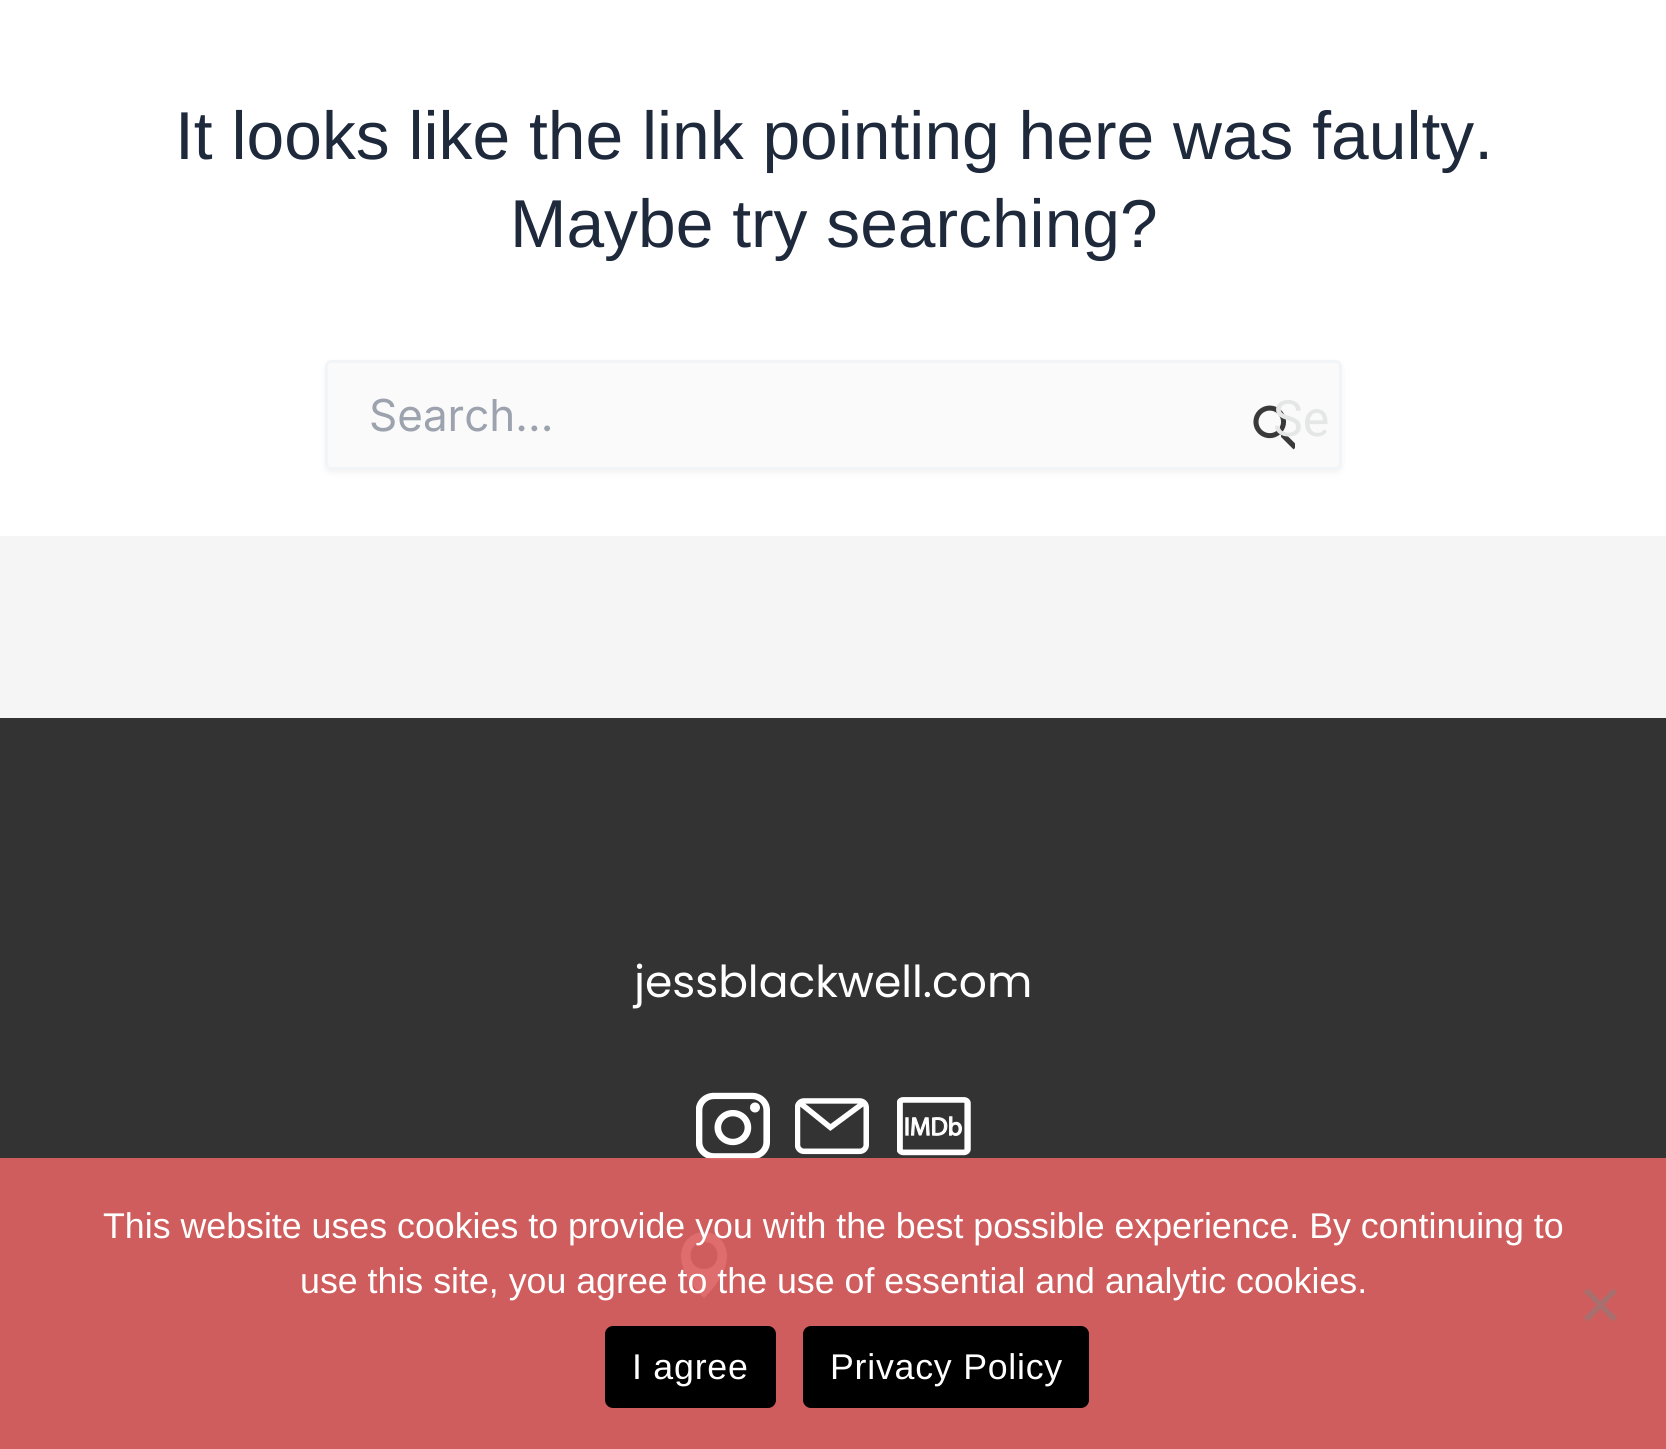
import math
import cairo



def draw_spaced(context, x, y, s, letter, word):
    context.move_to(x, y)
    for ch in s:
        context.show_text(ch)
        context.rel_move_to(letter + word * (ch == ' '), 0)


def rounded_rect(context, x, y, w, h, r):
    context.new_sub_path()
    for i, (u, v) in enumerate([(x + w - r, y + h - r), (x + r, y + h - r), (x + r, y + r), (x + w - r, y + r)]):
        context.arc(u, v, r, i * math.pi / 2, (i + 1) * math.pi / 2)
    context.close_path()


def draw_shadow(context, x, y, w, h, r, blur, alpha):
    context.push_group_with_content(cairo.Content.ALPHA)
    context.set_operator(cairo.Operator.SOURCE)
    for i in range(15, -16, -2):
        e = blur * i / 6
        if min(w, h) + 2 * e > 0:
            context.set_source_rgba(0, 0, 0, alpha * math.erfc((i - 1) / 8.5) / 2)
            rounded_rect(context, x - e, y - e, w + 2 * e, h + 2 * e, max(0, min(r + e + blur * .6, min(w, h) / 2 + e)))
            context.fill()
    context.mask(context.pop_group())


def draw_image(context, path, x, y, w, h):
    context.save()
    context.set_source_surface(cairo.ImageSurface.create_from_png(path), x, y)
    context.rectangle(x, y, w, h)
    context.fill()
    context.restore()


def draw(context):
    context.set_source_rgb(245 / 255, 245 / 255, 245 / 255)
    context.paint()
    context.set_source_rgb(1, 1, 1)
    context.rectangle(0, 0, 1666, 536)
    context.fill()
    context.set_source_rgb(0, 0, 0)
    draw_shadow(context, 325, 363, 1017, 110, 6, 3, 0.05)
    context.set_source_rgb(250 / 255, 250 / 255, 250 / 255)
    rounded_rect(context, 326.5, 361.5, 1014, 107, 4.5)
    context.fill_preserve()
    context.set_source_rgb(242 / 255, 245 / 255, 247 / 255)
    context.set_line_width(3)
    context.stroke()
    draw_image(context, "images/1.png", 1253, 405, 42, 45)
    context.set_source_rgb(51 / 255, 51 / 255, 51 / 255)
    context.rectangle(0, 718, 1666, 731)
    context.fill()
    draw_image(context, "images/2.png", 696, 1092, 74, 68)
    draw_image(context, "images/3.png", 795, 1098, 74, 57)
    draw_image(context, "images/4.png", 897, 1097, 74, 59)
    context.set_source_rgb(1, 1, 1)
    context.new_path()
    context.move_to(704, 1232)
    context.curve_to(691, 1232, 681, 1243, 681, 1256)
    context.curve_to(681, 1277, 704, 1298, 704, 1298)
    context.curve_to(704, 1298, 727, 1277, 727, 1256)
    context.curve_to(727, 1243, 717, 1232, 704, 1232)
    context.close_path()
    context.move_to(704, 1269)
    context.curve_to(686, 1269, 686, 1242, 704, 1242)
    context.curve_to(722, 1242, 722, 1269, 704, 1269)
    context.close_path()
    context.fill()
    context.set_source_rgba(221 / 255, 97 / 255, 97 / 255, 0.92)
    context.rectangle(0, 1158, 1666, 291)
    context.fill()
    context.set_source_rgb(168 / 255, 111 / 255, 111 / 255)
    context.new_path()
    context.move_to(1613, 1288.5)
    context.line_to(1617, 1292)
    context.line_to(1588, 1321.5)
    context.line_to(1584, 1317.5)
    context.close_path()
    context.fill()
    context.new_path()
    context.move_to(1584, 1292)
    context.line_to(1588, 1288.5)
    context.line_to(1617, 1317.5)
    context.line_to(1613, 1321.5)
    context.close_path()
    context.fill()
    context.set_source_rgb(0, 0, 0)
    rounded_rect(context, 605, 1326, 171, 82, 8)
    context.fill()
    rounded_rect(context, 803, 1326, 286, 82, 8)
    context.fill()
    context.select_font_face("Liberation Sans")
    context.set_font_size(67.75)
    context.set_source_rgb(30 / 255, 41 / 255, 59 / 255)
    context.move_to(175, 159)
    context.show_text("It looks like the link pointing here was faulty.")
    context.move_to(510, 247)
    context.show_text("Maybe try searching?")
    context.select_font_face("Inter")
    context.set_font_size(44)
    context.set_source_rgb(156 / 255, 163 / 255, 175 / 255)
    context.move_to(369, 431)
    context.show_text("Search...")
    context.select_font_face("Roboto")
    context.set_font_size(50)
    context.set_source_rgb(229 / 255, 230 / 255, 230 / 255)
    context.move_to(1273, 436)
    context.show_text("Se")
    context.select_font_face("Poppins")
    context.set_font_size(44)
    context.set_source_rgb(1, 1, 1)
    context.move_to(634, 997)
    context.show_text("jessblackwell.com")
    context.select_font_face("Liberation Sans")
    context.set_font_size(35.75)
    context.move_to(103, 1238)
    context.show_text("This website uses cookies to provide you with the best possible experience. By continuing to")
    context.move_to(300, 1293)
    context.show_text("use this site, you agree to the use of essential and analytic cookies.")
    draw_spaced(context, 632, 1379, "I agree", 0.75, 0)
    draw_spaced(context, 830, 1379, "Privacy Policy", 0.75, 0)


surface = cairo.ImageSurface(cairo.Format.RGB24, 1666, 1449)
context = cairo.Context(surface)
options = cairo.FontOptions()
options.set_hint_metrics(cairo.HintMetrics.OFF)
options.set_hint_style(cairo.HintStyle.NONE)
context.set_font_options(options)
context.set_miter_limit(4)
draw(context)
surface.write_to_png("out.png")
